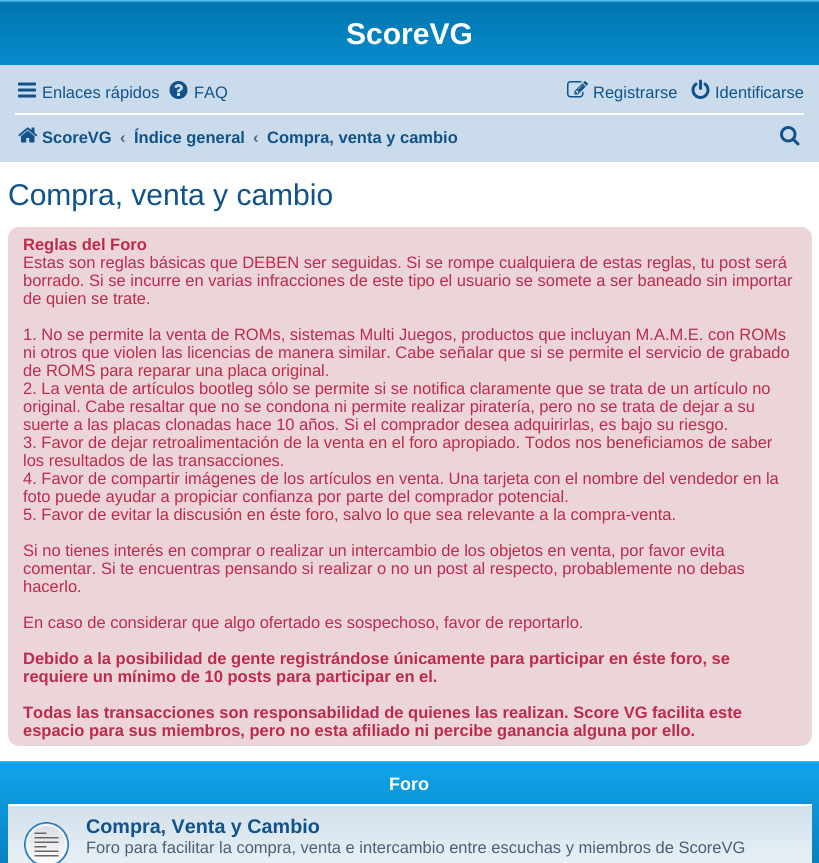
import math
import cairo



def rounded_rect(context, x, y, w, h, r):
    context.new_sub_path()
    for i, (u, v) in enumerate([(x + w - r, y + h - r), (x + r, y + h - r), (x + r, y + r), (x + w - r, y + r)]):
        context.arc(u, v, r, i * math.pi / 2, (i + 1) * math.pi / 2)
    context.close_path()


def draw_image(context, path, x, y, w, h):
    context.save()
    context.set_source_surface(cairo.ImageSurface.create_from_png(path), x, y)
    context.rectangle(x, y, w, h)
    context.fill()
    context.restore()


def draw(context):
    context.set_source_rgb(1, 1, 1)
    context.paint()
    gradient = cairo.LinearGradient(410, 0, 410, 138)
    gradient.add_color_stop_rgba(0, 106 / 255, 206 / 255, 1, 1)
    gradient.add_color_stop_rgba(0.02, 0, 118 / 255, 177 / 255, 1)
    gradient.add_color_stop_rgba(1, 18 / 255, 163 / 255, 235 / 255, 1)
    context.set_source(gradient)
    context.rectangle(0, 0, 819, 65)
    context.fill()
    context.set_source_rgb(202 / 255, 220 / 255, 235 / 255)
    context.rectangle(0, 65, 819, 97)
    context.fill()
    draw_image(context, "images/1.png", 18, 82, 18, 16)
    draw_image(context, "images/2.png", 169, 81, 19, 18)
    draw_image(context, "images/3.png", 567, 81, 21, 17)
    draw_image(context, "images/4.png", 691, 79, 19, 20)
    context.set_source_rgb(1, 1, 1)
    context.rectangle(15, 113, 789, 2)
    context.fill()
    draw_image(context, "images/5.png", 18, 127, 20, 16)
    draw_image(context, "images/6.png", 780, 126, 20, 20)
    context.set_source_rgb(236 / 255, 213 / 255, 216 / 255)
    rounded_rect(context, 8, 227, 804, 519, 11)
    context.fill()
    gradient = cairo.LinearGradient(410, 760, 410, 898)
    gradient.add_color_stop_rgba(0, 106 / 255, 206 / 255, 1, 1)
    gradient.add_color_stop_rgba(0.02, 18 / 255, 163 / 255, 235 / 255, 1)
    gradient.add_color_stop_rgba(1, 0, 118 / 255, 177 / 255, 1)
    context.set_source(gradient)
    context.rectangle(0, 761, 819, 102)
    context.fill()
    gradient = cairo.LinearGradient(410, 804, 410, 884)
    gradient.add_color_stop_rgba(0, 210 / 255, 224 / 255, 235 / 255, 1)
    gradient.add_color_stop_rgba(1, 238 / 255, 245 / 255, 249 / 255, 1)
    context.set_source(gradient)
    context.rectangle(8, 806, 804, 57)
    context.fill()
    context.set_source_rgb(1, 1, 1)
    context.rectangle(8, 804, 804, 2)
    context.fill()
    draw_image(context, "images/7.png", 24, 822, 45, 41)
    context.select_font_face("Liberation Sans", cairo.FontSlant.NORMAL, cairo.FontWeight.BOLD)
    context.set_font_size(30)
    context.move_to(346, 44)
    context.show_text("ScoreVG")
    context.select_font_face("Liberation Sans")
    context.set_font_size(16.5)
    context.set_source_rgb(16 / 255, 82 / 255, 137 / 255)
    context.move_to(42, 98)
    context.show_text("Enlaces rápidos")
    context.move_to(194, 98)
    context.show_text("FAQ")
    context.move_to(593, 98)
    context.show_text("Registrarse")
    context.move_to(715, 98)
    context.show_text("Identificarse")
    context.select_font_face("Liberation Sans", cairo.FontSlant.NORMAL, cairo.FontWeight.BOLD)
    context.move_to(42, 143)
    context.show_text("ScoreVG")
    context.set_source_rgb(83 / 255, 100 / 255, 130 / 255)
    context.move_to(120, 143)
    context.show_text("‹")
    context.set_source_rgb(16 / 255, 82 / 255, 137 / 255)
    context.move_to(134, 143)
    context.show_text("Índice general")
    context.set_source_rgb(83 / 255, 100 / 255, 130 / 255)
    context.move_to(253, 143)
    context.show_text("‹")
    context.set_source_rgb(16 / 255, 82 / 255, 137 / 255)
    context.move_to(267, 143)
    context.show_text("Compra, venta y cambio")
    context.select_font_face("Liberation Sans")
    context.set_font_size(30)
    context.move_to(8, 205)
    context.show_text("Compra, venta y cambio")
    context.select_font_face("Liberation Sans", cairo.FontSlant.NORMAL, cairo.FontWeight.BOLD)
    context.set_font_size(16.5)
    context.set_source_rgb(188 / 255, 42 / 255, 77 / 255)
    context.move_to(23, 250)
    context.show_text("Reglas del Foro")
    context.select_font_face("Liberation Sans")
    context.move_to(23, 268)
    context.show_text("Estas son reglas básicas que DEBEN ser seguidas. Si se rompe cualquiera de estas reglas, tu post será")
    context.move_to(23, 286)
    context.show_text("borrado. Si se incurre en varias infracciones de este tipo el usuario se somete a ser baneado sin importar")
    context.move_to(23, 304)
    context.show_text("de quien se trate.")
    context.move_to(23, 340)
    context.show_text("1. No se permite la venta de ROMs, sistemas Multi Juegos, productos que incluyan M.A.M.E. con ROMs")
    context.move_to(23, 358)
    context.show_text("ni otros que violen las licencias de manera similar. Cabe señalar que si se permite el servicio de grabado")
    context.move_to(23, 376)
    context.show_text("de ROMS para reparar una placa original.")
    context.move_to(23, 394)
    context.show_text("2. La venta de artículos bootleg sólo se permite si se notifica claramente que se trata de un artículo no")
    context.move_to(23, 412)
    context.show_text("original. Cabe resaltar que no se condona ni permite realizar piratería, pero no se trata de dejar a su")
    context.move_to(23, 430)
    context.show_text("suerte a las placas clonadas hace 10 años. Si el comprador desea adquirirlas, es bajo su riesgo.")
    context.move_to(23, 448)
    context.show_text("3. Favor de dejar retroalimentación de la venta en el foro apropiado. Todos nos beneficiamos de saber")
    context.move_to(23, 466)
    context.show_text("los resultados de las transacciones.")
    context.move_to(23, 484)
    context.show_text("4. Favor de compartir imágenes de los artículos en venta. Una tarjeta con el nombre del vendedor en la")
    context.move_to(23, 502)
    context.show_text("foto puede ayudar a propiciar confianza por parte del comprador potencial.")
    context.move_to(23, 520)
    context.show_text("5. Favor de evitar la discusión en éste foro, salvo lo que sea relevante a la compra-venta.")
    context.move_to(23, 556)
    context.show_text("Si no tienes interés en comprar o realizar un intercambio de los objetos en venta, por favor evita")
    context.move_to(23, 574)
    context.show_text("comentar. Si te encuentras pensando si realizar o no un post al respecto, probablemente no debas")
    context.move_to(23, 592)
    context.show_text("hacerlo.")
    context.move_to(23, 628)
    context.show_text("En caso de considerar que algo ofertado es sospechoso, favor de reportarlo.")
    context.select_font_face("Liberation Sans", cairo.FontSlant.NORMAL, cairo.FontWeight.BOLD)
    context.move_to(23, 664)
    context.show_text("Debido a la posibilidad de gente registrándose únicamente para participar en éste foro, se")
    context.move_to(23, 682)
    context.show_text("requiere un mínimo de 10 posts para participar en el.")
    context.move_to(23, 718)
    context.show_text("Todas las transacciones son responsabilidad de quienes las realizan. Score VG facilita este")
    context.move_to(23, 736)
    context.show_text("espacio para sus miembros, pero no esta afiliado ni percibe ganancia alguna por ello.")
    context.set_font_size(18)
    context.set_source_rgb(1, 1, 1)
    context.move_to(389, 790)
    context.show_text("Foro")
    context.set_font_size(19.75)
    context.set_source_rgb(16 / 255, 82 / 255, 137 / 255)
    context.move_to(86, 833)
    context.show_text("Compra, Venta y Cambio")
    context.select_font_face("Liberation Sans")
    context.set_font_size(16.5)
    context.set_source_rgb(76 / 255, 93 / 255, 119 / 255)
    context.move_to(86, 853)
    context.show_text("Foro para facilitar la compra, venta e intercambio entre escuchas y miembros de ScoreVG")


surface = cairo.ImageSurface(cairo.Format.RGB24, 819, 863)
context = cairo.Context(surface)
options = cairo.FontOptions()
options.set_hint_metrics(cairo.HintMetrics.OFF)
options.set_hint_style(cairo.HintStyle.NONE)
context.set_font_options(options)
context.set_miter_limit(4)
draw(context)
surface.write_to_png("out.png")
